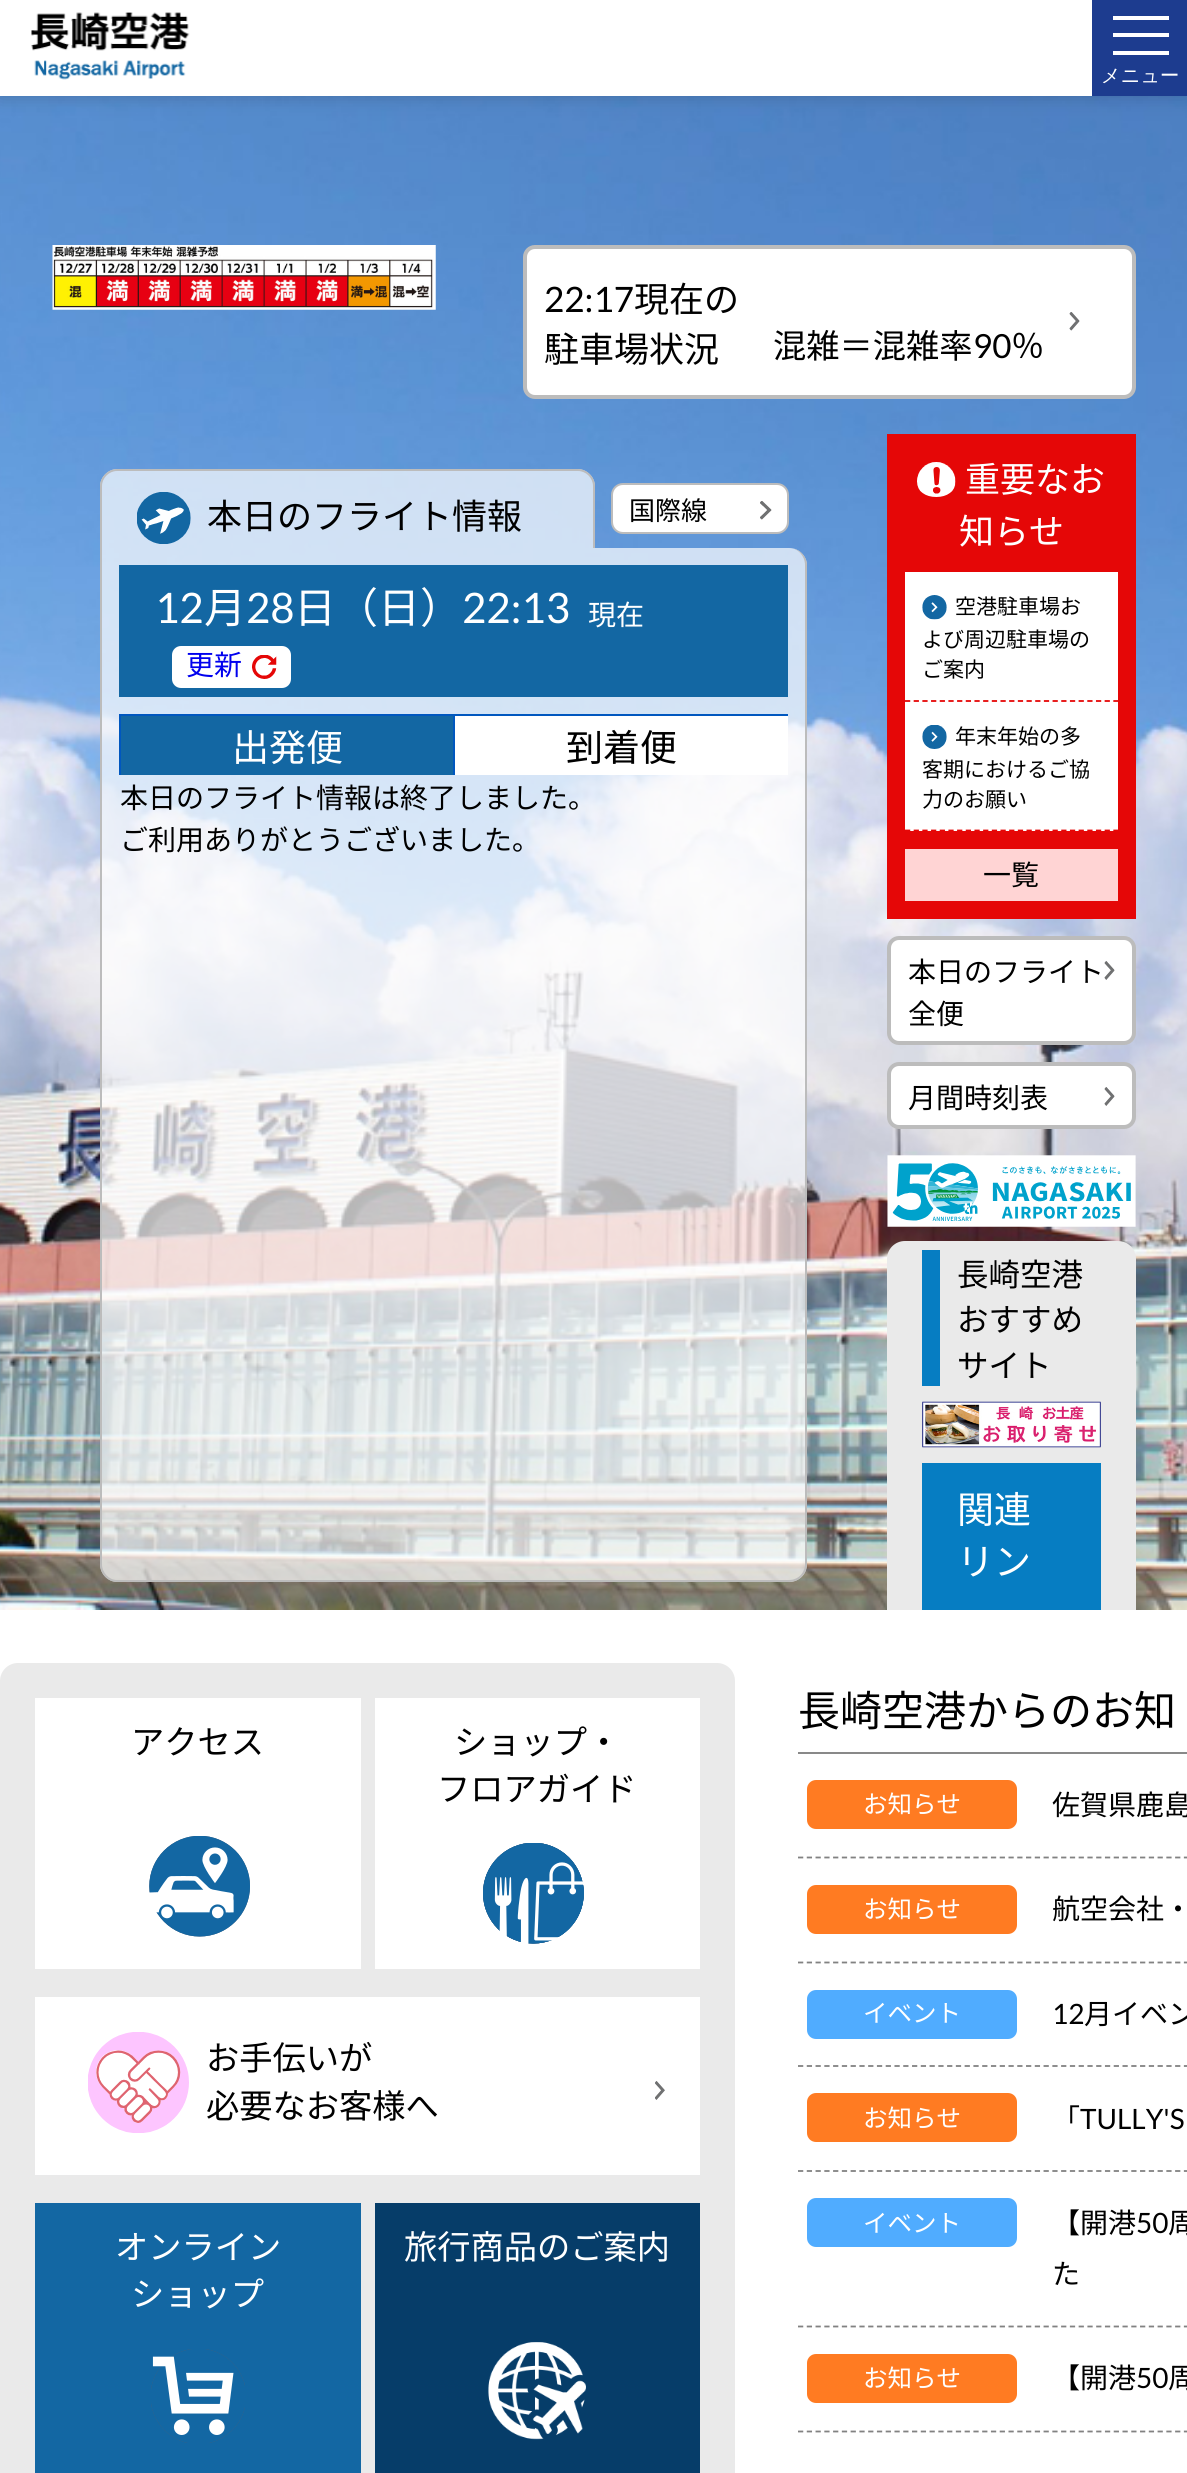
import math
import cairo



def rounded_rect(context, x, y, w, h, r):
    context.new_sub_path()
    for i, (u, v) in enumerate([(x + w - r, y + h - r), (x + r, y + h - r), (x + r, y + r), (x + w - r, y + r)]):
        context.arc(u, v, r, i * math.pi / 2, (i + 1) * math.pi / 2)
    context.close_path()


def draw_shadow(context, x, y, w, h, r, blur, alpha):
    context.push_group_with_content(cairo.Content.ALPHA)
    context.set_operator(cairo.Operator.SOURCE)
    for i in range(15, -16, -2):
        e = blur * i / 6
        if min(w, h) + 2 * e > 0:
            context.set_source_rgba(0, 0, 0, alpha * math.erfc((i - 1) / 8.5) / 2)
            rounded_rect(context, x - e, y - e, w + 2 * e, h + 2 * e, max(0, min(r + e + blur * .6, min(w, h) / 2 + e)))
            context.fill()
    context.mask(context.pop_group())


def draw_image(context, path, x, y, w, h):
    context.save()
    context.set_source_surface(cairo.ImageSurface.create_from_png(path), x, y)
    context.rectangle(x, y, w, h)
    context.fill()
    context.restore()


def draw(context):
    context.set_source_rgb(1, 1, 1)
    context.paint()
    draw_image(context, "images/2.png", 0, 96, 1187, 1514)
    context.set_source_rgb(0, 0, 0)
    draw_shadow(context, 0, 0, 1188, 96, 0, 9, 0.2)
    context.set_source_rgb(1, 1, 1)
    context.rectangle(0, 0, 1092, 96)
    context.fill()
    draw_image(context, "images/1.png", 31, 12, 159, 68)
    context.set_source_rgb(29 / 255, 60 / 255, 143 / 255)
    context.rectangle(1092, 0, 95, 96)
    context.fill()
    context.set_source_rgb(1, 1, 1)
    context.rectangle(1113, 33, 56, 4)
    context.fill()
    context.rectangle(1113, 16, 56, 4)
    context.fill()
    context.rectangle(1113, 51, 56, 4)
    context.fill()
    draw_image(context, "images/3.png", 52, 245, 384, 65)
    rounded_rect(context, 525, 247, 609, 150, 10)
    context.fill_preserve()
    context.set_source_rgb(188 / 255, 188 / 255, 188 / 255)
    context.set_line_width(4)
    context.stroke()
    draw_image(context, "images/4.png", 1069, 312, 11, 19)
    context.set_source_rgba(1, 1, 1, 0.7)
    context.new_path()
    context.move_to(118, 469)
    context.line_to(577, 469)
    context.curve_to(587, 469, 595, 477, 595, 487)
    context.line_to(595, 548)
    context.line_to(100, 548)
    context.line_to(100, 487)
    context.curve_to(100, 477, 108, 469, 118, 469)
    context.close_path()
    context.fill()
    context.set_source_rgb(188 / 255, 188 / 255, 188 / 255)
    context.set_fill_rule(cairo.FillRule.EVEN_ODD)
    context.new_path()
    context.move_to(117, 469)
    context.line_to(578, 469)
    context.curve_to(587, 469, 595, 477, 595, 486)
    context.line_to(595, 548)
    context.line_to(100, 548)
    context.line_to(100, 486)
    context.curve_to(100, 477, 108, 469, 117, 469)
    context.close_path()
    context.move_to(117, 471)
    context.line_to(578, 471)
    context.curve_to(586, 471, 593, 478, 593, 486)
    context.line_to(593, 548)
    context.line_to(102, 548)
    context.line_to(102, 486)
    context.curve_to(102, 478, 109, 471, 117, 471)
    context.close_path()
    context.fill()
    draw_image(context, "images/5.png", 137, 492, 54, 52)
    context.set_source_rgb(1, 1, 1)
    rounded_rect(context, 612, 484, 176, 49, 11)
    context.fill_preserve()
    context.set_source_rgb(188 / 255, 188 / 255, 188 / 255)
    context.set_line_width(2)
    context.stroke()
    draw_image(context, "images/6.png", 760, 501, 12, 19)
    context.set_source_rgba(1, 1, 1, 0.7)
    context.new_path()
    context.move_to(100, 548)
    context.line_to(789, 548)
    context.curve_to(799, 548, 807, 556, 807, 566)
    context.line_to(807, 1564)
    context.curve_to(807, 1574, 799, 1582, 789, 1582)
    context.line_to(118, 1582)
    context.curve_to(108, 1582, 100, 1574, 100, 1564)
    context.close_path()
    context.fill()
    context.set_source_rgb(188 / 255, 188 / 255, 188 / 255)
    context.new_path()
    context.move_to(100, 548)
    context.line_to(789, 548)
    context.curve_to(799, 548, 807, 556, 807, 565)
    context.line_to(807, 1564)
    context.curve_to(807, 1574, 799, 1582, 789, 1582)
    context.line_to(117, 1582)
    context.curve_to(108, 1582, 100, 1574, 100, 1564)
    context.close_path()
    context.move_to(102, 548)
    context.line_to(789, 548)
    context.curve_to(798, 548, 805, 556, 805, 565)
    context.line_to(805, 1564)
    context.curve_to(805, 1573, 798, 1580, 789, 1580)
    context.line_to(117, 1580)
    context.curve_to(109, 1580, 102, 1573, 102, 1564)
    context.close_path()
    context.fill()
    context.set_source_rgb(19 / 255, 103 / 255, 163 / 255)
    context.rectangle(119, 565, 669, 132)
    context.fill()
    context.set_source_rgb(1, 1, 1)
    rounded_rect(context, 172, 646, 119, 42, 9)
    context.fill()
    draw_image(context, "images/7.png", 252, 655, 25, 24)
    context.set_source_rgb(19 / 255, 103 / 255, 163 / 255)
    context.rectangle(121, 716, 332, 59)
    context.fill()
    context.set_source_rgb(0, 87 / 255, 191 / 255)
    context.rectangle(119, 714, 669, 2)
    context.fill()
    context.rectangle(119, 714, 2, 61)
    context.fill()
    context.set_source_rgb(1, 1, 1)
    context.rectangle(455, 716, 333, 59)
    context.fill()
    context.set_source_rgb(0, 87 / 255, 191 / 255)
    context.rectangle(453, 714, 2, 61)
    context.fill()
    context.set_source_rgb(229 / 255, 7 / 255, 7 / 255)
    context.rectangle(887, 434, 249, 485)
    context.fill()
    draw_image(context, "images/8.png", 917, 462, 39, 35)
    context.set_source_rgb(1, 1, 1)
    context.rectangle(905, 572, 213, 259)
    context.fill()
    context.new_path()
    context.move_to(905, 701)
    context.line_to(1118, 701)
    context.set_source_rgb(229 / 255, 7 / 255, 7 / 255)
    context.set_line_width(1.8)
    context.set_dash([5.25, 3.43])
    context.stroke()
    draw_image(context, "images/9.png", 922, 595, 25, 25)
    context.new_path()
    context.move_to(905, 830.5)
    context.line_to(1118, 830.5)
    context.stroke()
    draw_image(context, "images/10.png", 922, 725, 25, 24)
    context.set_source_rgb(1, 212 / 255, 212 / 255)
    context.rectangle(905, 849, 213, 52)
    context.fill()
    context.set_source_rgb(1, 1, 1)
    rounded_rect(context, 889, 938, 245, 105, 10)
    context.fill_preserve()
    context.set_source_rgb(188 / 255, 188 / 255, 188 / 255)
    context.set_line_width(4)
    context.set_dash([])
    context.stroke()
    draw_image(context, "images/11.png", 1104, 961, 11, 19)
    context.set_source_rgb(1, 1, 1)
    rounded_rect(context, 889, 1064, 245, 63, 10)
    context.fill_preserve()
    context.set_source_rgb(188 / 255, 188 / 255, 188 / 255)
    context.stroke()
    draw_image(context, "images/11.png", 1104, 1087, 11, 19)
    draw_image(context, "images/12.png", 887, 1155, 249, 72)
    context.set_source_rgb(234 / 255, 234 / 255, 234 / 255)
    context.new_path()
    context.move_to(905, 1241)
    context.line_to(1118, 1241)
    context.curve_to(1128, 1241, 1136, 1249, 1136, 1259)
    context.line_to(1136, 1610)
    context.line_to(887, 1610)
    context.line_to(887, 1259)
    context.curve_to(887, 1249, 895, 1241, 905, 1241)
    context.close_path()
    context.fill()
    context.set_source_rgb(6 / 255, 125 / 255, 194 / 255)
    context.rectangle(922, 1250, 18, 136)
    context.fill()
    draw_image(context, "images/13.png", 922, 1401, 179, 47)
    context.rectangle(922, 1463, 179, 147)
    context.fill()
    context.set_source_rgb(234 / 255, 234 / 255, 234 / 255)
    rounded_rect(context, 0, 1663, 735, 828, 18)
    context.fill()
    context.set_source_rgb(1, 1, 1)
    context.rectangle(35, 1698, 326, 271)
    context.fill()
    draw_image(context, "images/14.png", 149, 1836, 101, 101)
    context.rectangle(375, 1698, 325, 271)
    context.fill()
    draw_image(context, "images/15.png", 483, 1843, 101, 101)
    context.rectangle(35, 1997, 665, 178)
    context.fill()
    draw_image(context, "images/16.png", 88, 2032, 101, 101)
    draw_image(context, "images/17.png", 655, 2081, 10, 19)
    context.set_source_rgb(19 / 255, 103 / 255, 163 / 255)
    context.rectangle(35, 2203, 326, 270)
    context.fill()
    draw_image(context, "images/18.png", 151, 2349, 94, 94)
    context.set_source_rgb(6 / 255, 61 / 255, 105 / 255)
    context.rectangle(375, 2203, 325, 270)
    context.fill()
    draw_image(context, "images/19.png", 488, 2342, 98, 98)
    context.set_source_rgb(137 / 255, 137 / 255, 137 / 255)
    context.rectangle(798, 1752, 389, 2)
    context.fill()
    context.new_path()
    context.move_to(798, 1857.5)
    context.line_to(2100, 1857.5)
    context.set_source_rgb(130 / 255, 130 / 255, 130 / 255)
    context.set_line_width(1.8)
    context.set_dash([5.25, 3.52])
    context.stroke()
    context.set_source_rgb(1, 123 / 255, 34 / 255)
    rounded_rect(context, 807, 1780, 210, 49, 9)
    context.fill()
    context.new_path()
    context.move_to(798, 1962.5)
    context.line_to(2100, 1962.5)
    context.set_source_rgb(130 / 255, 130 / 255, 130 / 255)
    context.stroke()
    context.set_source_rgb(1, 123 / 255, 34 / 255)
    rounded_rect(context, 807, 1885, 210, 49, 9)
    context.fill()
    context.new_path()
    context.move_to(798, 2066)
    context.line_to(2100, 2066)
    context.set_source_rgb(130 / 255, 130 / 255, 130 / 255)
    context.stroke()
    context.set_source_rgb(80 / 255, 172 / 255, 1)
    rounded_rect(context, 807, 1990, 210, 49, 9)
    context.fill()
    context.new_path()
    context.move_to(798, 2171)
    context.line_to(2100, 2171)
    context.set_source_rgb(130 / 255, 130 / 255, 130 / 255)
    context.stroke()
    context.set_source_rgb(1, 123 / 255, 34 / 255)
    rounded_rect(context, 807, 2093, 210, 49, 9)
    context.fill()
    context.new_path()
    context.move_to(798, 2326.5)
    context.line_to(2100, 2326.5)
    context.set_source_rgb(130 / 255, 130 / 255, 130 / 255)
    context.stroke()
    context.set_source_rgb(80 / 255, 172 / 255, 1)
    rounded_rect(context, 807, 2198, 210, 49, 9)
    context.fill()
    context.new_path()
    context.move_to(798, 2431.5)
    context.line_to(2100, 2431.5)
    context.set_source_rgb(130 / 255, 130 / 255, 130 / 255)
    context.stroke()
    context.set_source_rgb(1, 123 / 255, 34 / 255)
    rounded_rect(context, 807, 2354, 210, 49, 9)
    context.fill()
    context.select_font_face("WenQuanYi Zen Hei Medium")
    context.set_font_size(19.25)
    context.set_source_rgb(1, 1, 1)
    context.move_to(1101, 82)
    context.show_text("メニュー")
    context.select_font_face("Lato")
    context.set_font_size(35)
    context.set_source_rgb(0, 0, 0)
    context.move_to(544, 312)
    context.show_text("22:17")
    context.select_font_face("Noto Sans JP")
    context.move_to(634, 312)
    context.show_text("現在の")
    context.move_to(544, 362)
    context.show_text("駐車場状況")
    context.set_font_size(33.25)
    context.move_to(773, 358)
    context.show_text("混雑＝混雑率")
    context.select_font_face("Lato")
    context.move_to(973, 358)
    context.show_text("90")
    context.select_font_face("Noto Sans JP")
    context.move_to(1011, 358)
    context.show_text("％")
    context.set_font_size(35)
    context.move_to(207, 529)
    context.show_text("本日のフライト情報")
    context.set_font_size(26)
    context.move_to(629, 520)
    context.show_text("国際線")
    context.select_font_face("Lato")
    context.set_font_size(42)
    context.set_source_rgb(1, 1, 1)
    context.move_to(155, 623)
    context.show_text("12")
    context.select_font_face("Noto Sans JP")
    context.move_to(204, 623)
    context.show_text("月")
    context.select_font_face("Lato")
    context.move_to(246, 623)
    context.show_text("28")
    context.select_font_face("Noto Sans JP")
    context.move_to(294, 623)
    context.show_text("日（日）")
    context.select_font_face("Lato")
    context.move_to(462, 623)
    context.show_text("22:13")
    context.select_font_face("Noto Sans JP")
    context.set_font_size(28)
    context.move_to(588, 625)
    context.show_text("現在")
    context.set_source_rgb(0, 0, 238 / 255)
    context.move_to(186, 675)
    context.show_text("更新")
    context.set_font_size(37)
    context.set_source_rgb(1, 1, 1)
    context.move_to(232, 761)
    context.show_text("出発便")
    context.set_source_rgb(0, 0, 0)
    context.move_to(566, 761)
    context.show_text("到着便")
    context.set_font_size(28)
    context.move_to(120, 808)
    context.show_text("本日のフライト情報は終了しました。")
    context.move_to(120, 850)
    context.show_text("ご利用ありがとうございました。")
    context.set_font_size(35)
    context.set_source_rgb(1, 1, 1)
    context.move_to(965, 492)
    context.show_text("重要なお")
    context.move_to(959, 544)
    context.show_text("知らせ")
    context.set_font_size(21)
    context.set_source_rgb(0, 0, 0)
    context.move_to(955, 614)
    context.show_text("空港駐車場お")
    context.move_to(922, 647)
    context.show_text("よび周辺駐車場の")
    context.move_to(922, 677)
    context.show_text("ご案内")
    context.move_to(955, 744)
    context.show_text("年末年始の多")
    context.move_to(922, 777)
    context.show_text("客期におけるご協")
    context.move_to(922, 807)
    context.show_text("力のお願い")
    context.set_font_size(28)
    context.move_to(983, 885)
    context.show_text("一覧")
    context.move_to(908, 982)
    context.show_text("本日のフライト")
    context.move_to(908, 1024)
    context.show_text("全便")
    context.move_to(908, 1108)
    context.show_text("月間時刻表")
    context.set_font_size(31.5)
    context.move_to(957, 1286)
    context.show_text("長崎空港")
    context.move_to(957, 1331)
    context.show_text("おすすめ")
    context.move_to(957, 1377)
    context.show_text("サイト")
    context.set_font_size(37)
    context.set_source_rgb(1, 1, 1)
    context.move_to(957, 1523)
    context.show_text("関連")
    context.move_to(957, 1575)
    context.show_text("リン")
    context.set_font_size(33.25)
    context.set_source_rgb(0, 0, 0)
    context.move_to(131, 1754)
    context.show_text("アクセス")
    context.move_to(454, 1754)
    context.show_text("ショップ・")
    context.move_to(437, 1801)
    context.show_text("フロアガイド")
    context.move_to(206, 2070)
    context.show_text("お手伝いが")
    context.move_to(206, 2118)
    context.show_text("必要なお客様へ")
    context.set_source_rgb(1, 1, 1)
    context.move_to(115, 2259)
    context.show_text("オンライン")
    context.move_to(131, 2306)
    context.show_text("ショップ")
    context.move_to(404, 2259)
    context.show_text("旅行商品のご案内")
    context.set_font_size(42)
    context.set_source_rgb(0, 0, 0)
    context.move_to(798, 1726)
    context.show_text("長崎空港からのお知")
    context.set_font_size(24.5)
    context.set_source_rgb(1, 1, 1)
    context.move_to(863, 1813)
    context.show_text("お知らせ")
    context.set_font_size(28)
    context.set_source_rgb(0, 0, 0)
    context.move_to(1052, 1815)
    context.show_text("佐賀県鹿島")
    context.set_font_size(24.5)
    context.set_source_rgb(1, 1, 1)
    context.move_to(863, 1918)
    context.show_text("お知らせ")
    context.set_font_size(28)
    context.set_source_rgb(0, 0, 0)
    context.move_to(1052, 1919)
    context.show_text("航空会社・")
    context.set_font_size(24.5)
    context.set_source_rgb(1, 1, 1)
    context.move_to(863, 2022)
    context.show_text("イベント")
    context.select_font_face("Lato")
    context.set_font_size(28)
    context.set_source_rgb(0, 0, 0)
    context.move_to(1052, 2024)
    context.show_text("12")
    context.select_font_face("Noto Sans JP")
    context.move_to(1084, 2024)
    context.show_text("月イベン")
    context.set_font_size(24.5)
    context.set_source_rgb(1, 1, 1)
    context.move_to(863, 2127)
    context.show_text("お知らせ")
    context.set_font_size(28)
    context.set_source_rgb(0, 0, 0)
    context.move_to(1052, 2129)
    context.show_text("「")
    context.select_font_face("Lato")
    context.move_to(1080, 2129)
    context.show_text("TULLY'S")
    context.select_font_face("Noto Sans JP")
    context.set_font_size(24.5)
    context.set_source_rgb(1, 1, 1)
    context.move_to(863, 2232)
    context.show_text("イベント")
    context.set_font_size(28)
    context.set_source_rgb(0, 0, 0)
    context.move_to(1052, 2233)
    context.show_text("【開港")
    context.select_font_face("Lato")
    context.move_to(1136, 2233)
    context.show_text("50")
    context.select_font_face("Noto Sans JP")
    context.move_to(1168, 2233)
    context.show_text("周")
    context.move_to(1052, 2284)
    context.show_text("た")
    context.set_font_size(24.5)
    context.set_source_rgb(1, 1, 1)
    context.move_to(863, 2387)
    context.show_text("お知らせ")
    context.set_font_size(28)
    context.set_source_rgb(0, 0, 0)
    context.move_to(1052, 2388)
    context.show_text("【開港")
    context.select_font_face("Lato")
    context.move_to(1136, 2388)
    context.show_text("50")
    context.select_font_face("Noto Sans JP")
    context.move_to(1168, 2388)
    context.show_text("周")


surface = cairo.ImageSurface(cairo.Format.RGB24, 1187, 2473)
context = cairo.Context(surface)
options = cairo.FontOptions()
options.set_hint_metrics(cairo.HintMetrics.OFF)
options.set_hint_style(cairo.HintStyle.NONE)
context.set_font_options(options)
context.set_miter_limit(4)
draw(context)
surface.write_to_png("out.png")
